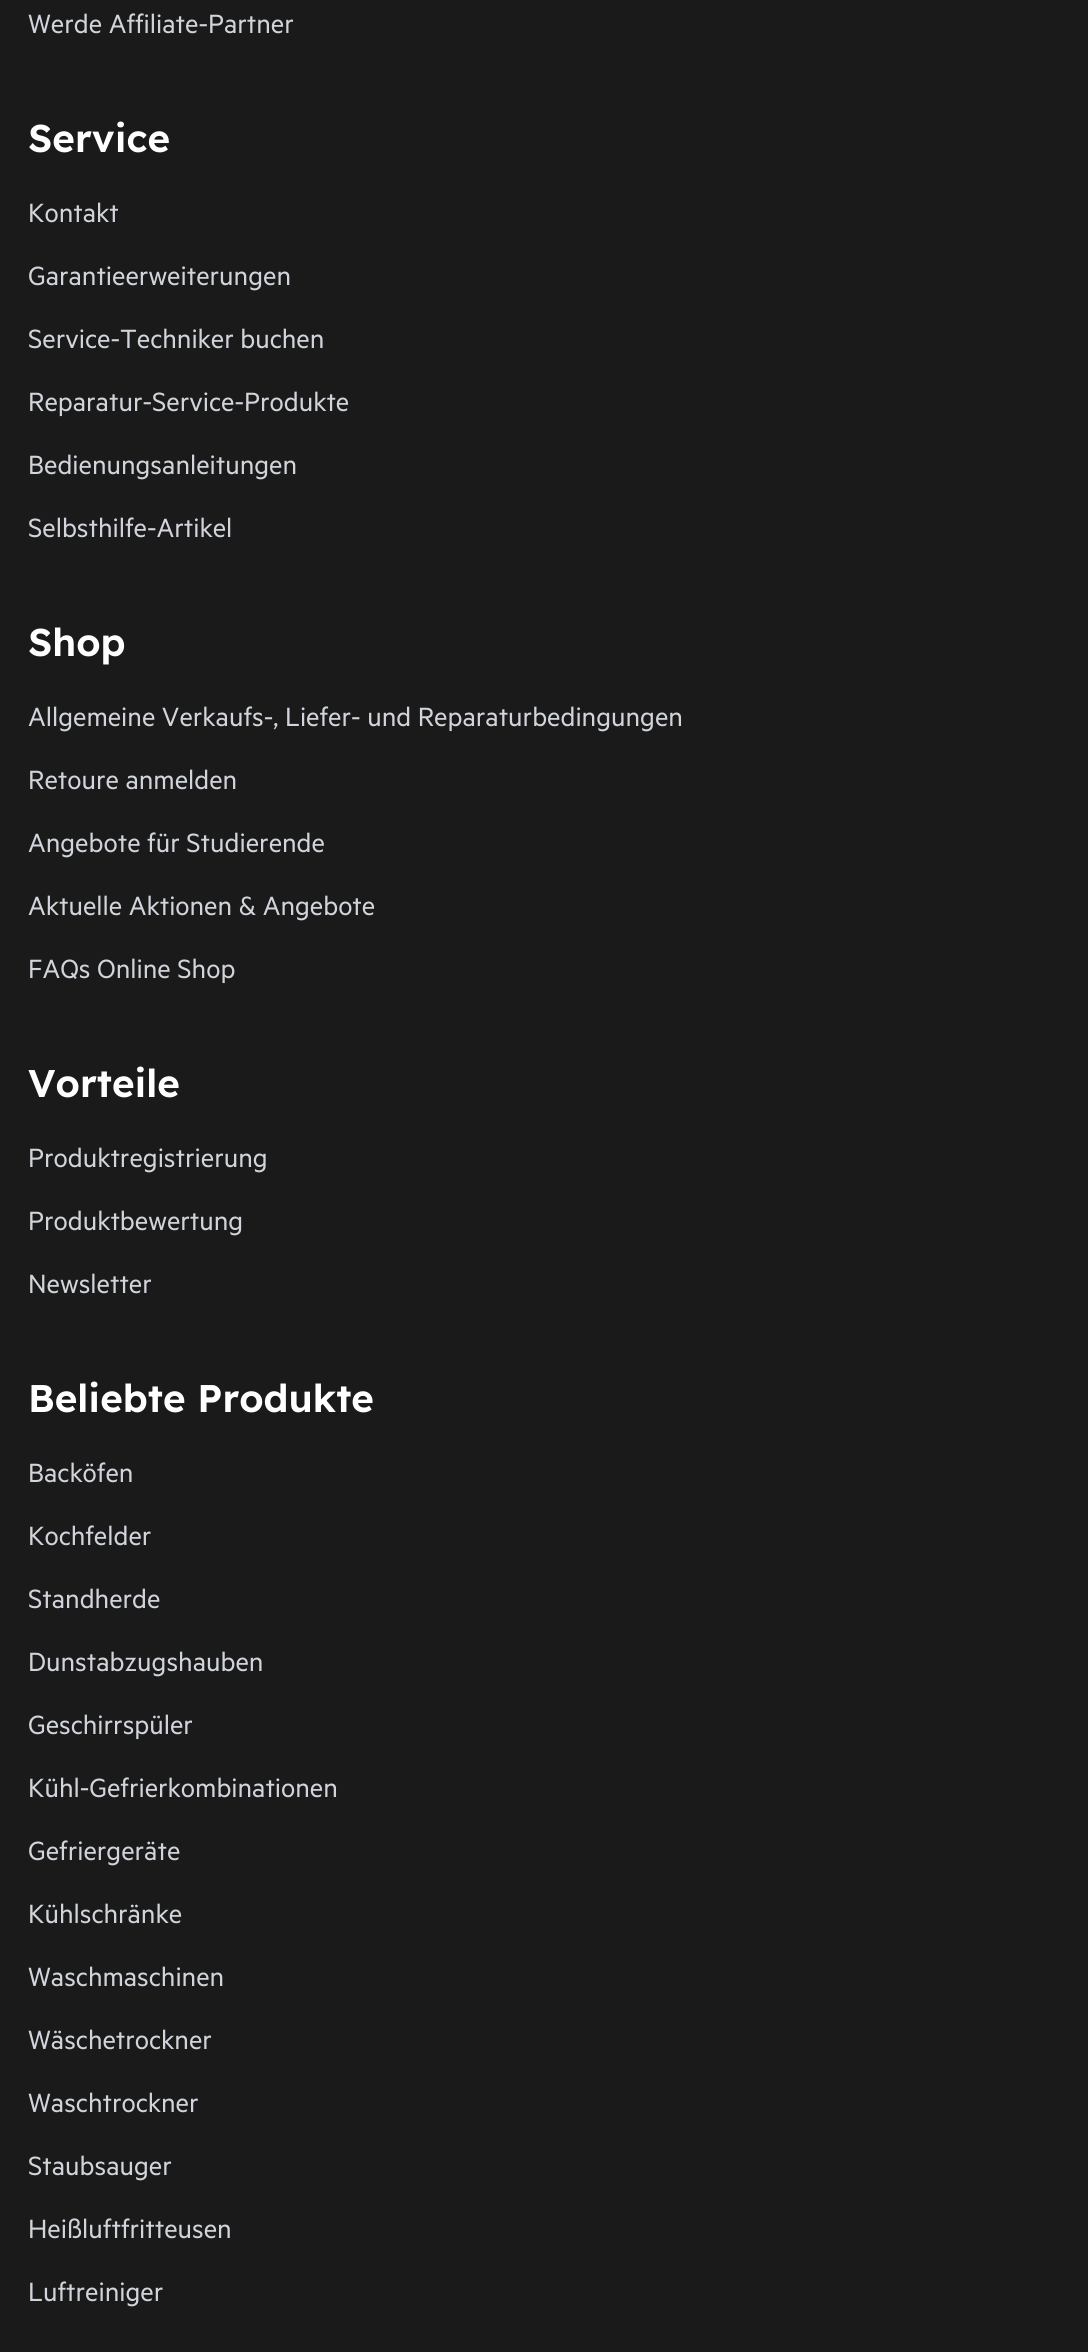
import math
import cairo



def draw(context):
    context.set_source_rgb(26 / 255, 26 / 255, 26 / 255)
    context.paint()
    context.select_font_face("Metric")
    context.set_font_size(29.75)
    context.set_source_rgb(209 / 255, 213 / 255, 219 / 255)
    context.move_to(28, 33)
    context.show_text("Werde Affiliate-Partner")
    context.select_font_face("Readex Pro SemiBold")
    context.set_font_size(38.5)
    context.set_source_rgb(1, 1, 1)
    context.move_to(28, 152)
    context.show_text("Service")
    context.select_font_face("Metric")
    context.set_font_size(29.75)
    context.set_source_rgb(209 / 255, 213 / 255, 219 / 255)
    context.move_to(28, 222)
    context.show_text("Kontakt")
    context.move_to(28, 285)
    context.show_text("Garantieerweiterungen")
    context.move_to(28, 348)
    context.show_text("Service-Techniker buchen")
    context.move_to(28, 411)
    context.show_text("Reparatur-Service-Produkte")
    context.move_to(28, 474)
    context.show_text("Bedienungsanleitungen")
    context.move_to(28, 537)
    context.show_text("Selbsthilfe-Artikel")
    context.select_font_face("Readex Pro SemiBold")
    context.set_font_size(38.5)
    context.set_source_rgb(1, 1, 1)
    context.move_to(28, 656)
    context.show_text("Shop")
    context.select_font_face("Metric")
    context.set_font_size(29.75)
    context.set_source_rgb(209 / 255, 213 / 255, 219 / 255)
    context.move_to(28, 726)
    context.show_text("Allgemeine Verkaufs-, Liefer- und Reparaturbedingungen")
    context.move_to(28, 789)
    context.show_text("Retoure anmelden")
    context.move_to(28, 852)
    context.show_text("Angebote für Studierende")
    context.move_to(28, 915)
    context.show_text("Aktuelle Aktionen & Angebote")
    context.move_to(28, 978)
    context.show_text("FAQs Online Shop")
    context.select_font_face("Readex Pro SemiBold")
    context.set_font_size(38.5)
    context.set_source_rgb(1, 1, 1)
    context.move_to(28, 1097)
    context.show_text("Vorteile")
    context.select_font_face("Metric")
    context.set_font_size(29.75)
    context.set_source_rgb(209 / 255, 213 / 255, 219 / 255)
    context.move_to(28, 1167)
    context.show_text("Produktregistrierung")
    context.move_to(28, 1230)
    context.show_text("Produktbewertung")
    context.move_to(28, 1293)
    context.show_text("Newsletter")
    context.select_font_face("Readex Pro SemiBold")
    context.set_font_size(38.5)
    context.set_source_rgb(1, 1, 1)
    context.move_to(28, 1412)
    context.show_text("Beliebte Produkte")
    context.select_font_face("Metric")
    context.set_font_size(29.75)
    context.set_source_rgb(209 / 255, 213 / 255, 219 / 255)
    context.move_to(28, 1482)
    context.show_text("Backöfen")
    context.move_to(28, 1545)
    context.show_text("Kochfelder")
    context.move_to(28, 1608)
    context.show_text("Standherde")
    context.move_to(28, 1671)
    context.show_text("Dunstabzugshauben")
    context.move_to(28, 1734)
    context.show_text("Geschirrspüler")
    context.move_to(28, 1797)
    context.show_text("Kühl-Gefrierkombinationen")
    context.move_to(28, 1860)
    context.show_text("Gefriergeräte")
    context.move_to(28, 1923)
    context.show_text("Kühlschränke")
    context.move_to(28, 1986)
    context.show_text("Waschmaschinen")
    context.move_to(28, 2049)
    context.show_text("Wäschetrockner")
    context.move_to(28, 2112)
    context.show_text("Waschtrockner")
    context.move_to(28, 2175)
    context.show_text("Staubsauger")
    context.move_to(28, 2238)
    context.show_text("Heißluftfritteusen")
    context.move_to(28, 2301)
    context.show_text("Luftreiniger")


surface = cairo.ImageSurface(cairo.Format.RGB24, 1088, 2352)
context = cairo.Context(surface)
options = cairo.FontOptions()
options.set_hint_metrics(cairo.HintMetrics.OFF)
options.set_hint_style(cairo.HintStyle.NONE)
context.set_font_options(options)
context.set_miter_limit(4)
draw(context)
surface.write_to_png("out.png")
